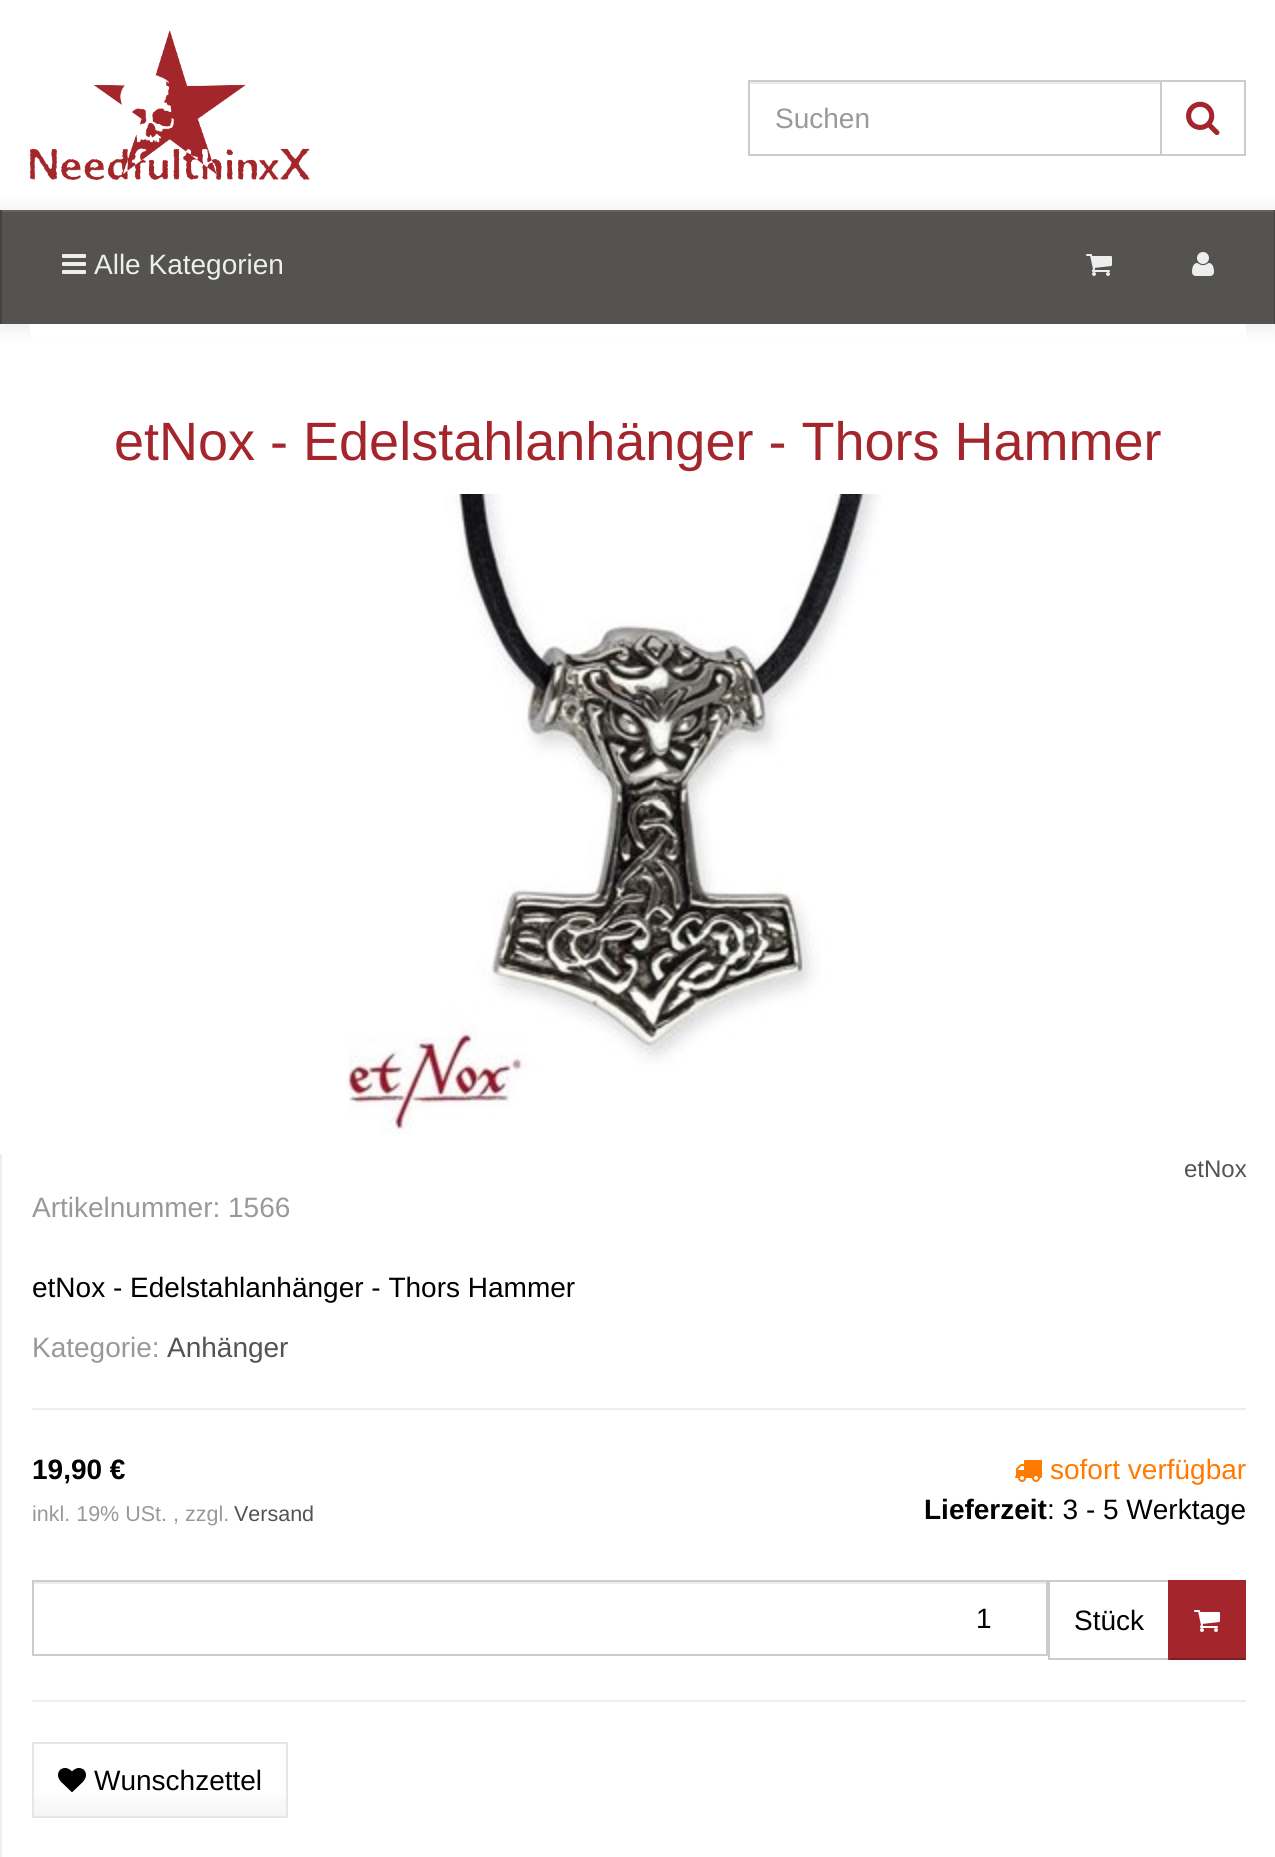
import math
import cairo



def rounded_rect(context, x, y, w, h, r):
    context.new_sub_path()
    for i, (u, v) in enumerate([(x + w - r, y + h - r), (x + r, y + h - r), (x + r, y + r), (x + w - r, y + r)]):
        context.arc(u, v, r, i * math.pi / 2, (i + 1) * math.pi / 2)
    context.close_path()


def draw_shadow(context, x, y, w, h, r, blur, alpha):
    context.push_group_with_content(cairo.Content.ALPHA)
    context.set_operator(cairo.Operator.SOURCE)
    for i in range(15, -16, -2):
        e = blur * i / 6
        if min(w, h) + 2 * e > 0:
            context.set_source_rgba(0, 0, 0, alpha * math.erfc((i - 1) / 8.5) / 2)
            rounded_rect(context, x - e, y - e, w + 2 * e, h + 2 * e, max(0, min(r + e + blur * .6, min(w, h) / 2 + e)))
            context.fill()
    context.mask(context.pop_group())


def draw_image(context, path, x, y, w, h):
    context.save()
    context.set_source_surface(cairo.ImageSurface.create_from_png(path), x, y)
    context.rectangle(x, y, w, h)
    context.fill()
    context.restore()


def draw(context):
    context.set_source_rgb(1, 1, 1)
    context.paint()
    draw_image(context, "images/1.png", 30, 30, 280, 150)
    context.set_source_rgb(236 / 255, 236 / 255, 236 / 255)
    context.rectangle(750, 82, 410, 2)
    context.fill()
    context.rectangle(749, 81, 412, 74)
    context.set_source_rgb(204 / 255, 204 / 255, 204 / 255)
    context.stroke()
    context.rectangle(1162, 80, 84, 2)
    context.fill()
    context.rectangle(1244, 80, 2, 76)
    context.fill()
    context.rectangle(1162, 154, 84, 2)
    context.fill()
    draw_image(context, "images/2.png", 1186, 101, 34, 35)
    context.set_source_rgb(0, 0, 0)
    draw_shadow(context, 0, 212, 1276, 114, 0, 10, 0.1)
    context.set_source_rgb(84 / 255, 83 / 255, 80 / 255)
    context.rectangle(2, 212, 1272, 112)
    context.fill()
    context.set_source_rgb(67 / 255, 66 / 255, 64 / 255)
    context.rectangle(1274, 210, 1, 114)
    context.fill()
    context.rectangle(0, 210, 2, 114)
    context.fill()
    context.set_source_rgb(101 / 255, 100 / 255, 98 / 255)
    context.rectangle(2, 210, 1272, 2)
    context.fill()
    draw_image(context, "images/3.png", 62, 254, 24, 20)
    draw_image(context, "images/4.png", 1086, 254, 26, 22)
    draw_image(context, "images/5.png", 1192, 252, 22, 24)
    context.set_source_rgb(1, 1, 1)
    context.rectangle(30, 324, 1216, 15)
    context.fill()
    draw_image(context, "images/6.png", 346, 494, 535, 640)
    context.set_source_rgb(238 / 255, 238 / 255, 238 / 255)
    context.rectangle(0, 1154, 2, 703)
    context.fill()
    context.rectangle(32, 1408, 1214, 2)
    context.fill()
    draw_image(context, "images/7.png", 1015, 1460, 27, 22)
    context.set_source_rgb(236 / 255, 236 / 255, 236 / 255)
    context.rectangle(34, 1582, 1012, 2)
    context.fill()
    context.rectangle(33, 1581, 1014, 74)
    context.set_source_rgb(204 / 255, 204 / 255, 204 / 255)
    context.stroke()
    context.rectangle(1049, 1581, 120, 78)
    context.stroke()
    context.set_source_rgb(164 / 255, 38 / 255, 44 / 255)
    context.rectangle(1170, 1580, 76, 78)
    context.fill()
    context.set_source_rgb(123 / 255, 28 / 255, 33 / 255)
    context.rectangle(1168, 1658, 78, 2)
    context.fill()
    context.set_source_rgb(164 / 255, 38 / 255, 44 / 255)
    context.rectangle(1168, 1580, 2, 80)
    context.fill()
    draw_image(context, "images/8.png", 1194, 1610, 26, 22)
    context.set_source_rgb(238 / 255, 238 / 255, 238 / 255)
    context.rectangle(32, 1700, 1214, 2)
    context.fill()
    gradient = cairo.LinearGradient(160, 1744, 160, 1816)
    gradient.add_color_stop_rgba(0, 1, 1, 1, 1)
    gradient.add_color_stop_rgba(0.6, 1, 1, 1, 1)
    gradient.add_color_stop_rgba(1, 245 / 255, 245 / 255, 245 / 255, 1)
    context.set_source(gradient)
    context.rectangle(34, 1794, 252, 22)
    context.fill()
    context.set_source_rgb(230 / 255, 230 / 255, 230 / 255)
    context.new_path()
    context.move_to(32, 1742)
    context.line_to(288, 1742)
    context.line_to(286, 1744)
    context.line_to(34, 1744)
    context.close_path()
    context.fill()
    context.set_source_rgba(0, 0, 0, 0.1)
    context.new_path()
    context.move_to(288, 1742)
    context.line_to(288, 1818)
    context.line_to(286, 1816)
    context.line_to(286, 1744)
    context.close_path()
    context.fill()
    context.set_source_rgb(230 / 255, 230 / 255, 230 / 255)
    context.new_path()
    context.move_to(288, 1818)
    context.line_to(32, 1818)
    context.line_to(34, 1816)
    context.line_to(286, 1816)
    context.close_path()
    context.fill()
    context.set_source_rgba(0, 0, 0, 0.1)
    context.new_path()
    context.move_to(32, 1818)
    context.line_to(32, 1742)
    context.line_to(34, 1744)
    context.line_to(34, 1816)
    context.close_path()
    context.fill()
    draw_image(context, "images/9.png", 58, 1768, 28, 24)
    context.select_font_face("Liberation Sans")
    context.set_font_size(28)
    context.set_source_rgb(153 / 255, 153 / 255, 153 / 255)
    context.move_to(775, 128)
    context.show_text("Suchen")
    context.set_source_rgb(238 / 255, 238 / 255, 238 / 255)
    context.move_to(94, 274)
    context.show_text("Alle Kategorien")
    context.set_font_size(54)
    context.set_source_rgb(164 / 255, 38 / 255, 44 / 255)
    context.move_to(114, 460)
    context.show_text("etNox - Edelstahlanhänger - Thors Hammer")
    context.set_font_size(24)
    context.set_source_rgb(84 / 255, 83 / 255, 80 / 255)
    context.move_to(1184, 1177)
    context.show_text("etNox")
    context.set_font_size(28)
    context.set_source_rgb(153 / 255, 153 / 255, 153 / 255)
    context.move_to(32, 1217)
    context.show_text("Artikelnummer: 1566")
    context.set_source_rgb(0, 0, 0)
    context.move_to(32, 1297)
    context.show_text("etNox - Edelstahlanhänger - Thors Hammer")
    context.set_source_rgb(153 / 255, 153 / 255, 153 / 255)
    context.move_to(32, 1357)
    context.show_text("Kategorie:")
    context.set_source_rgb(84 / 255, 83 / 255, 80 / 255)
    context.move_to(167, 1357)
    context.show_text("Anhänger")
    context.select_font_face("Liberation Sans", cairo.FontSlant.NORMAL, cairo.FontWeight.BOLD)
    context.set_source_rgb(0, 0, 0)
    context.move_to(32, 1479)
    context.show_text("19,90 €")
    context.select_font_face("Liberation Sans")
    context.set_font_size(21.5)
    context.set_source_rgb(153 / 255, 153 / 255, 153 / 255)
    context.move_to(32, 1521)
    context.show_text("inkl. 19% USt. , zzgl.")
    context.set_source_rgb(84 / 255, 83 / 255, 80 / 255)
    context.move_to(234, 1521)
    context.show_text("Versand")
    context.set_font_size(28)
    context.set_source_rgb(1, 122 / 255, 0)
    context.move_to(1050, 1479)
    context.show_text("sofort verfügbar")
    context.select_font_face("Liberation Sans", cairo.FontSlant.NORMAL, cairo.FontWeight.BOLD)
    context.set_source_rgb(0, 0, 0)
    context.move_to(924, 1519)
    context.show_text("Lieferzeit")
    context.select_font_face("Liberation Sans")
    context.move_to(1047, 1519)
    context.show_text(": 3 - 5 Werktage")
    context.move_to(976, 1628)
    context.show_text("1")
    context.move_to(1074, 1630)
    context.show_text("Stück")
    context.move_to(94, 1790)
    context.show_text("Wunschzettel")


surface = cairo.ImageSurface(cairo.Format.RGB24, 1275, 1857)
context = cairo.Context(surface)
options = cairo.FontOptions()
options.set_hint_metrics(cairo.HintMetrics.OFF)
options.set_hint_style(cairo.HintStyle.NONE)
context.set_font_options(options)
context.set_miter_limit(4)
draw(context)
surface.write_to_png("out.png")
